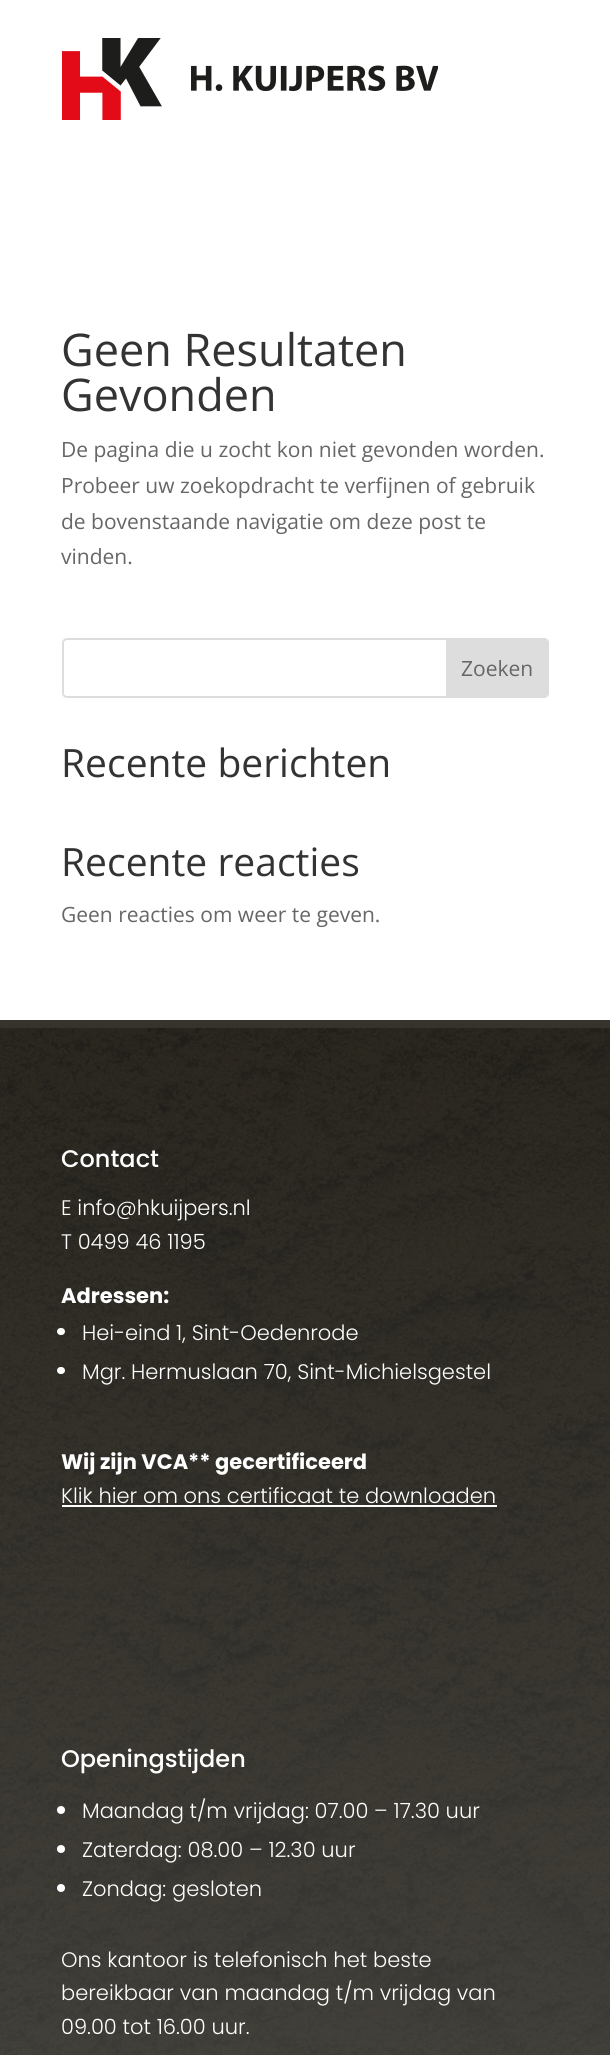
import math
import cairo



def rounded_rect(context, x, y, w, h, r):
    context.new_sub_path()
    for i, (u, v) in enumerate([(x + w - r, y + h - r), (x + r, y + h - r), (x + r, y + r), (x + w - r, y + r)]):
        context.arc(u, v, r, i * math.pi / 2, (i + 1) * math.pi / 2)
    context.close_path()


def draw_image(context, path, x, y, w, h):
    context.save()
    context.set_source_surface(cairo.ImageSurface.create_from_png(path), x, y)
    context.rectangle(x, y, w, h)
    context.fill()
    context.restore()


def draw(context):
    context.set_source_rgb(1, 1, 1)
    context.paint()
    draw_image(context, "images/1.png", 62, 38, 376, 82)
    rounded_rect(context, 63, 639, 485, 58, 4)
    context.set_source_rgb(221 / 255, 221 / 255, 221 / 255)
    context.stroke()
    context.new_path()
    context.move_to(447, 639)
    context.line_to(544, 639)
    context.curve_to(546, 639, 548, 641, 548, 643)
    context.line_to(548, 693)
    context.curve_to(548, 695, 546, 697, 544, 697)
    context.line_to(447, 697)
    context.close_path()
    context.fill_preserve()
    context.stroke()
    draw_image(context, "images/2.png", 0, 1028, 610, 1027)
    context.set_source_rgb(53 / 255, 51 / 255, 44 / 255)
    context.rectangle(0, 1020, 610, 8)
    context.fill()
    context.set_source_rgb(1, 1, 1)
    rounded_rect(context, 57, 1328, 8, 7, 3.5)
    context.fill()
    rounded_rect(context, 57, 1367, 8, 7, 3.5)
    context.fill()
    context.rectangle(62, 1505, 435, 2)
    context.fill()
    context.arc(61, 1810, 4, 0, 2 * math.pi)
    context.fill()
    context.arc(61, 1849, 4, 0, 2 * math.pi)
    context.fill()
    context.arc(61, 1888, 4, 0, 2 * math.pi)
    context.fill()
    context.select_font_face("Open Sans")
    context.set_font_size(45)
    context.set_source_rgb(51 / 255, 51 / 255, 51 / 255)
    context.move_to(61, 366)
    context.show_text("Geen Resultaten")
    context.move_to(61, 411)
    context.show_text("Gevonden")
    context.set_font_size(21)
    context.set_source_rgb(102 / 255, 102 / 255, 102 / 255)
    context.move_to(61, 457)
    context.show_text("De pagina die u zocht kon niet gevonden worden.")
    context.move_to(61, 493)
    context.show_text("Probeer uw zoekopdracht te verfijnen of gebruik")
    context.move_to(61, 529)
    context.show_text("de bovenstaande navigatie om deze post te")
    context.move_to(61, 564)
    context.show_text("vinden.")
    context.move_to(461, 676)
    context.show_text("Zoeken")
    context.set_font_size(39)
    context.set_source_rgb(51 / 255, 51 / 255, 51 / 255)
    context.move_to(61, 777)
    context.show_text("Recente berichten")
    context.move_to(61, 876)
    context.show_text("Recente reacties")
    context.set_font_size(21)
    context.set_source_rgb(102 / 255, 102 / 255, 102 / 255)
    context.move_to(61, 922)
    context.show_text("Geen reacties om weer te geven.")
    context.select_font_face("Poppins Medium")
    context.set_font_size(24)
    context.set_source_rgb(1, 1, 1)
    context.move_to(61, 1167)
    context.show_text("Contact")
    context.select_font_face("Poppins Light")
    context.set_font_size(21)
    context.move_to(61, 1215)
    context.show_text("E info@hkuijpers.nl")
    context.move_to(61, 1249)
    context.show_text("T 0499 46 1195")
    context.select_font_face("Poppins", cairo.FontSlant.NORMAL, cairo.FontWeight.BOLD)
    context.move_to(61, 1303)
    context.show_text("Adressen:")
    context.select_font_face("Poppins Light")
    context.move_to(82, 1340)
    context.show_text("Hei-eind 1, Sint-Oedenrode")
    context.move_to(82, 1379)
    context.show_text("Mgr. Hermuslaan 70, Sint-Michielsgestel")
    context.select_font_face("Poppins", cairo.FontSlant.NORMAL, cairo.FontWeight.BOLD)
    context.move_to(61, 1469)
    context.show_text("Wij zijn VCA** gecertificeerd")
    context.select_font_face("Poppins Light")
    context.move_to(61, 1503)
    context.show_text("Klik hier om ons certificaat te downloaden")
    context.select_font_face("Poppins Medium")
    context.set_font_size(24)
    context.move_to(61, 1767)
    context.show_text("Openingstijden")
    context.select_font_face("Poppins Light")
    context.set_font_size(21)
    context.move_to(82, 1818)
    context.show_text("Maandag t/m vrijdag: 07.00 – 17.30 uur")
    context.move_to(82, 1857)
    context.show_text("Zaterdag: 08.00 – 12.30 uur")
    context.move_to(82, 1896)
    context.show_text("Zondag: gesloten")
    context.move_to(61, 1967)
    context.show_text("Ons kantoor is telefonisch het beste")
    context.move_to(61, 2000)
    context.show_text("bereikbaar van maandag t/m vrijdag van")
    context.move_to(61, 2034)
    context.show_text("09.00 tot 16.00 uur.")


surface = cairo.ImageSurface(cairo.Format.RGB24, 610, 2055)
context = cairo.Context(surface)
options = cairo.FontOptions()
options.set_hint_metrics(cairo.HintMetrics.OFF)
options.set_hint_style(cairo.HintStyle.NONE)
context.set_font_options(options)
context.set_miter_limit(4)
draw(context)
surface.write_to_png("out.png")
